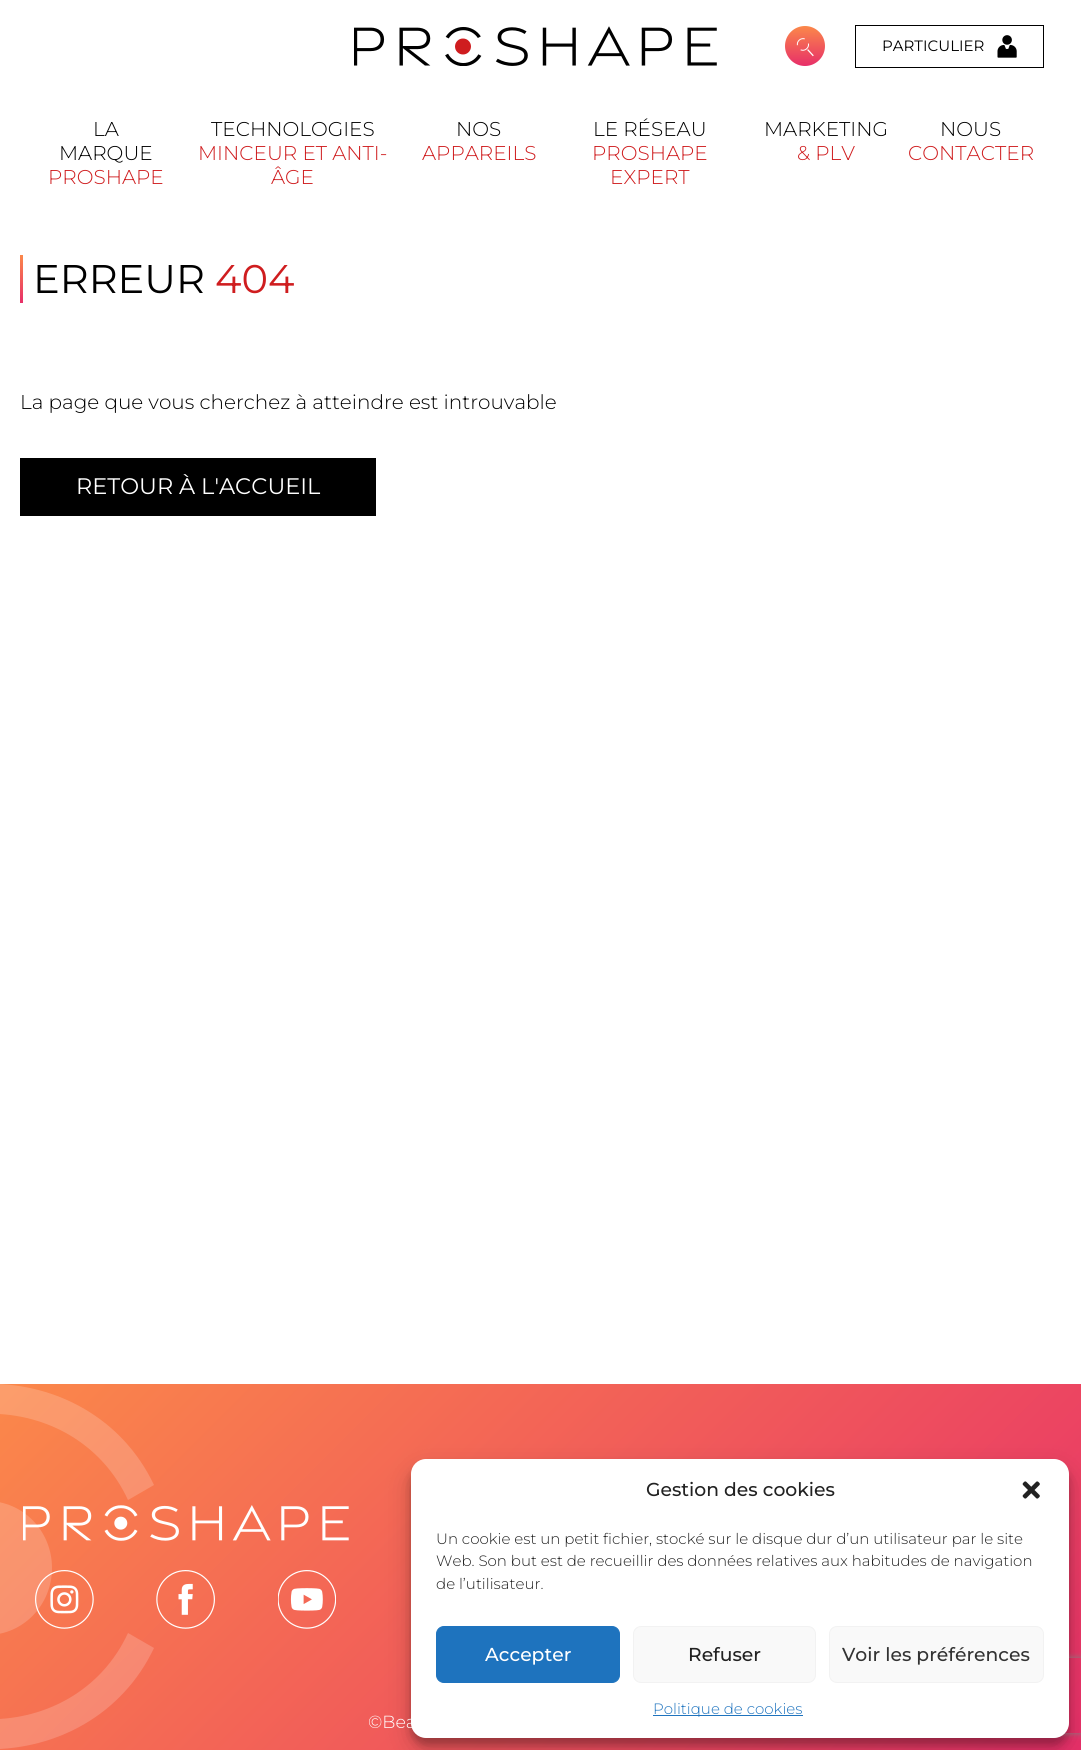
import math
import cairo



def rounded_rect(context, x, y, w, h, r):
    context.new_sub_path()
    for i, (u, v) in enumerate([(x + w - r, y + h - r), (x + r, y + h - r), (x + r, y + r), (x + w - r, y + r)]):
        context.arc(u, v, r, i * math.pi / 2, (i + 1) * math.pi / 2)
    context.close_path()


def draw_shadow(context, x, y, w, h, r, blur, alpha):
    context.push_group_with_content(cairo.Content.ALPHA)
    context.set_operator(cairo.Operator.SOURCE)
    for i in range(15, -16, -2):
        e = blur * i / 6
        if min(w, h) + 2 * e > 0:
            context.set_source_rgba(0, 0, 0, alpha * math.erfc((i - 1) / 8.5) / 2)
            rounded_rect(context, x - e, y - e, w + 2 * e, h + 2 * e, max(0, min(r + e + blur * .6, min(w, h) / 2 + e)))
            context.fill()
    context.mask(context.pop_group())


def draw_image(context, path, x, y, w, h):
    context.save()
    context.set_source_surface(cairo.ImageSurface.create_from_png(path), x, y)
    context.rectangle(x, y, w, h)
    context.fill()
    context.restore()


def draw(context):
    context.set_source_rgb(1, 1, 1)
    context.paint()
    draw_image(context, "images/1.png", 354, 26, 363, 40)
    gradient = cairo.LinearGradient(805, 26, 805, 66)
    gradient.add_color_stop_rgba(0, 251 / 255, 136 / 255, 74 / 255, 1)
    gradient.add_color_stop_rgba(1, 231 / 255, 47 / 255, 105 / 255, 1)
    context.set_source(gradient)
    context.arc(805, 46, 20, 0, 2 * math.pi)
    context.fill()
    draw_image(context, "images/2.png", 796, 38, 18, 19)
    context.rectangle(855.5, 25.5, 188, 42)
    context.set_source_rgb(0, 0, 0)
    context.set_line_width(1)
    context.stroke()
    draw_image(context, "images/3.png", 997, 35, 20, 23)
    gradient = cairo.LinearGradient(21, 255, 21, 303)
    gradient.add_color_stop_rgba(0, 251 / 255, 136 / 255, 74 / 255, 1)
    gradient.add_color_stop_rgba(1, 231 / 255, 47 / 255, 105 / 255, 1)
    context.set_source(gradient)
    context.rectangle(20, 255, 3, 48)
    context.fill()
    context.set_source_rgb(0, 0, 0)
    context.rectangle(20, 458, 356, 58)
    context.fill()
    gradient = cairo.LinearGradient(179, 1205, 903, 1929)
    gradient.add_color_stop_rgba(0, 251 / 255, 136 / 255, 74 / 255, 1)
    gradient.add_color_stop_rgba(1, 231 / 255, 47 / 255, 105 / 255, 1)
    context.set_source(gradient)
    context.rectangle(0, 1384, 1081, 366)
    context.fill()
    context.set_source_rgba(1, 1, 1, 0.18)
    context.set_fill_rule(cairo.FillRule.EVEN_ODD)
    context.new_path()
    context.move_to(154, 1485)
    context.curve_to(90, 1350, -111, 1350, -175, 1485)
    context.line_to(-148, 1500)
    context.curve_to(-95, 1385, 75, 1385, 128, 1500)
    context.close_path()
    context.move_to(154, 1648)
    context.curve_to(90, 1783, -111, 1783, -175, 1648)
    context.line_to(-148, 1633)
    context.curve_to(-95, 1748, 75, 1748, 128, 1633)
    context.close_path()
    context.fill()
    context.set_fill_rule(cairo.FillRule.WINDING)
    context.new_path()
    context.move_to(-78, 1568)
    context.curve_to(-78, 1531, -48, 1501, -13, 1501)
    context.curve_to(23, 1501, 52, 1531, 52, 1568)
    context.curve_to(52, 1605, 23, 1635, -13, 1635)
    context.curve_to(-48, 1635, -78, 1605, -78, 1568)
    context.fill()
    draw_image(context, "images/4.png", 23, 1505, 326, 36)
    draw_image(context, "images/5.png", 35, 1570, 59, 59)
    draw_image(context, "images/6.png", 156, 1570, 59, 59)
    draw_image(context, "images/7.png", 278, 1570, 58, 59)
    context.set_source_rgb(0, 0, 0)
    draw_shadow(context, 411, 1466, 658, 279, 15, 4, 0.23)
    draw_shadow(context, 411, 1471, 658, 279, 15, 12.5, 0.19)
    context.save()
    context.set_fill_rule(cairo.FillRule.EVEN_ODD)
    context.new_path()
    context.move_to(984, 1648)
    context.line_to(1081, 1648)
    context.line_to(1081, 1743)
    context.line_to(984, 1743)
    context.close_path()
    context.move_to(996.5, 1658)
    context.line_to(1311.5, 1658)
    context.curve_to(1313, 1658, 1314, 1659, 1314, 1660.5)
    context.line_to(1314, 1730.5)
    context.curve_to(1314, 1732, 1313, 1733, 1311.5, 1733)
    context.line_to(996.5, 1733)
    context.curve_to(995, 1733, 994, 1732, 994, 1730.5)
    context.line_to(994, 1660.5)
    context.curve_to(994, 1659, 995, 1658, 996.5, 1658)
    context.close_path()
    context.clip()
    context.set_source_rgb(128 / 255, 128 / 255, 128 / 255)
    draw_shadow(context, 994, 1658, 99, 75, 2.5, 3, 1)
    context.restore()
    context.set_source_rgb(1, 1, 1)
    rounded_rect(context, 411, 1459, 658, 279, 15)
    context.fill()
    draw_image(context, "images/8.png", 1022, 1481, 18, 18)
    context.set_source_rgb(30 / 255, 115 / 255, 190 / 255)
    rounded_rect(context, 436.5, 1626.5, 183, 56, 7.5)
    context.fill_preserve()
    context.stroke()
    context.set_source_rgb(249 / 255, 249 / 255, 249 / 255)
    rounded_rect(context, 633.5, 1626.5, 182, 56, 7.5)
    context.fill_preserve()
    context.set_source_rgb(242 / 255, 242 / 255, 242 / 255)
    context.stroke()
    context.set_source_rgb(249 / 255, 249 / 255, 249 / 255)
    rounded_rect(context, 829.5, 1626.5, 214, 56, 7.5)
    context.fill_preserve()
    context.set_source_rgb(242 / 255, 242 / 255, 242 / 255)
    context.stroke()
    context.set_source_rgb(30 / 255, 115 / 255, 190 / 255)
    context.rectangle(653, 1715, 150, 1)
    context.fill()
    context.select_font_face("Montserrat")
    context.set_font_size(15)
    context.set_source_rgb(0, 0, 0)
    context.move_to(882, 51)
    context.show_text("PARTICULIER")
    context.select_font_face("Montserrat Light")
    context.set_font_size(20)
    context.move_to(93, 136)
    context.show_text("LA")
    context.move_to(59, 160)
    context.show_text("MARQUE")
    context.set_source_rgb(207 / 255, 29 / 255, 31 / 255)
    context.move_to(48, 184)
    context.show_text("PROSHAPE")
    context.set_source_rgb(0, 0, 0)
    context.move_to(211, 136)
    context.show_text("TECHNOLOGIES")
    context.set_source_rgb(207 / 255, 29 / 255, 31 / 255)
    context.move_to(198, 160)
    context.show_text("MINCEUR ET ANTI-")
    context.move_to(271, 184)
    context.show_text("ÂGE")
    context.set_source_rgb(0, 0, 0)
    context.move_to(456, 136)
    context.show_text("NOS")
    context.set_source_rgb(207 / 255, 29 / 255, 31 / 255)
    context.move_to(422, 160)
    context.show_text("APPAREILS")
    context.set_source_rgb(0, 0, 0)
    context.move_to(593, 136)
    context.show_text("LE RÉSEAU")
    context.set_source_rgb(207 / 255, 29 / 255, 31 / 255)
    context.move_to(592, 160)
    context.show_text("PROSHAPE")
    context.move_to(610, 184)
    context.show_text("EXPERT")
    context.set_source_rgb(0, 0, 0)
    context.move_to(764, 136)
    context.show_text("MARKETING")
    context.set_source_rgb(207 / 255, 29 / 255, 31 / 255)
    context.move_to(797, 160)
    context.show_text("& PLV")
    context.set_source_rgb(0, 0, 0)
    context.move_to(940, 136)
    context.show_text("NOUS")
    context.set_source_rgb(207 / 255, 29 / 255, 31 / 255)
    context.move_to(908, 160)
    context.show_text("CONTACTER")
    context.select_font_face("Montserrat")
    context.set_font_size(40)
    context.set_source_rgb(0, 0, 0)
    context.move_to(33, 293)
    context.show_text("ERREUR")
    context.set_source_rgb(207 / 255, 29 / 255, 31 / 255)
    context.move_to(215, 293)
    context.show_text("404")
    context.select_font_face("Montserrat Light")
    context.set_font_size(20)
    context.set_source_rgb(0, 0, 0)
    context.move_to(20, 409)
    context.show_text("La page que vous cherchez à atteindre est introuvable")
    context.select_font_face("Montserrat")
    context.set_font_size(22.5)
    context.set_source_rgb(1, 1, 1)
    context.move_to(76, 494)
    context.show_text("RETOUR À L'ACCUEIL")
    context.select_font_face("Montserrat Light")
    context.set_font_size(17.5)
    context.move_to(368, 1728)
    context.show_text("©Bea")
    context.select_font_face("Montserrat Medium")
    context.set_font_size(18.75)
    context.set_source_rgb(34 / 255, 34 / 255, 34 / 255)
    context.move_to(646, 1496)
    context.show_text("Gestion des cookies")
    context.select_font_face("Montserrat Light")
    context.set_font_size(15)
    context.move_to(436, 1544)
    context.show_text("Un cookie est un petit fichier, stocké sur le disque dur d’un utilisateur par le site")
    context.move_to(436, 1566)
    context.show_text("Web. Son but est de recueillir des données relatives aux habitudes de navigation")
    context.move_to(436, 1589)
    context.show_text("de l’utilisateur.")
    context.select_font_face("Montserrat Medium")
    context.set_font_size(18.75)
    context.set_source_rgb(1, 1, 1)
    context.move_to(485, 1661)
    context.show_text("Accepter")
    context.set_source_rgb(34 / 255, 34 / 255, 34 / 255)
    context.move_to(688, 1661)
    context.show_text("Refuser")
    context.set_source_rgb(51 / 255, 51 / 255, 51 / 255)
    context.move_to(842, 1661)
    context.show_text("Voir les préférences")
    context.select_font_face("Montserrat Light")
    context.set_font_size(15)
    context.set_source_rgb(30 / 255, 115 / 255, 190 / 255)
    context.move_to(653, 1714)
    context.show_text("Politique de cookies")


surface = cairo.ImageSurface(cairo.Format.RGB24, 1081, 1750)
context = cairo.Context(surface)
options = cairo.FontOptions()
options.set_hint_metrics(cairo.HintMetrics.OFF)
options.set_hint_style(cairo.HintStyle.NONE)
context.set_font_options(options)
context.set_miter_limit(4)
draw(context)
surface.write_to_png("out.png")
